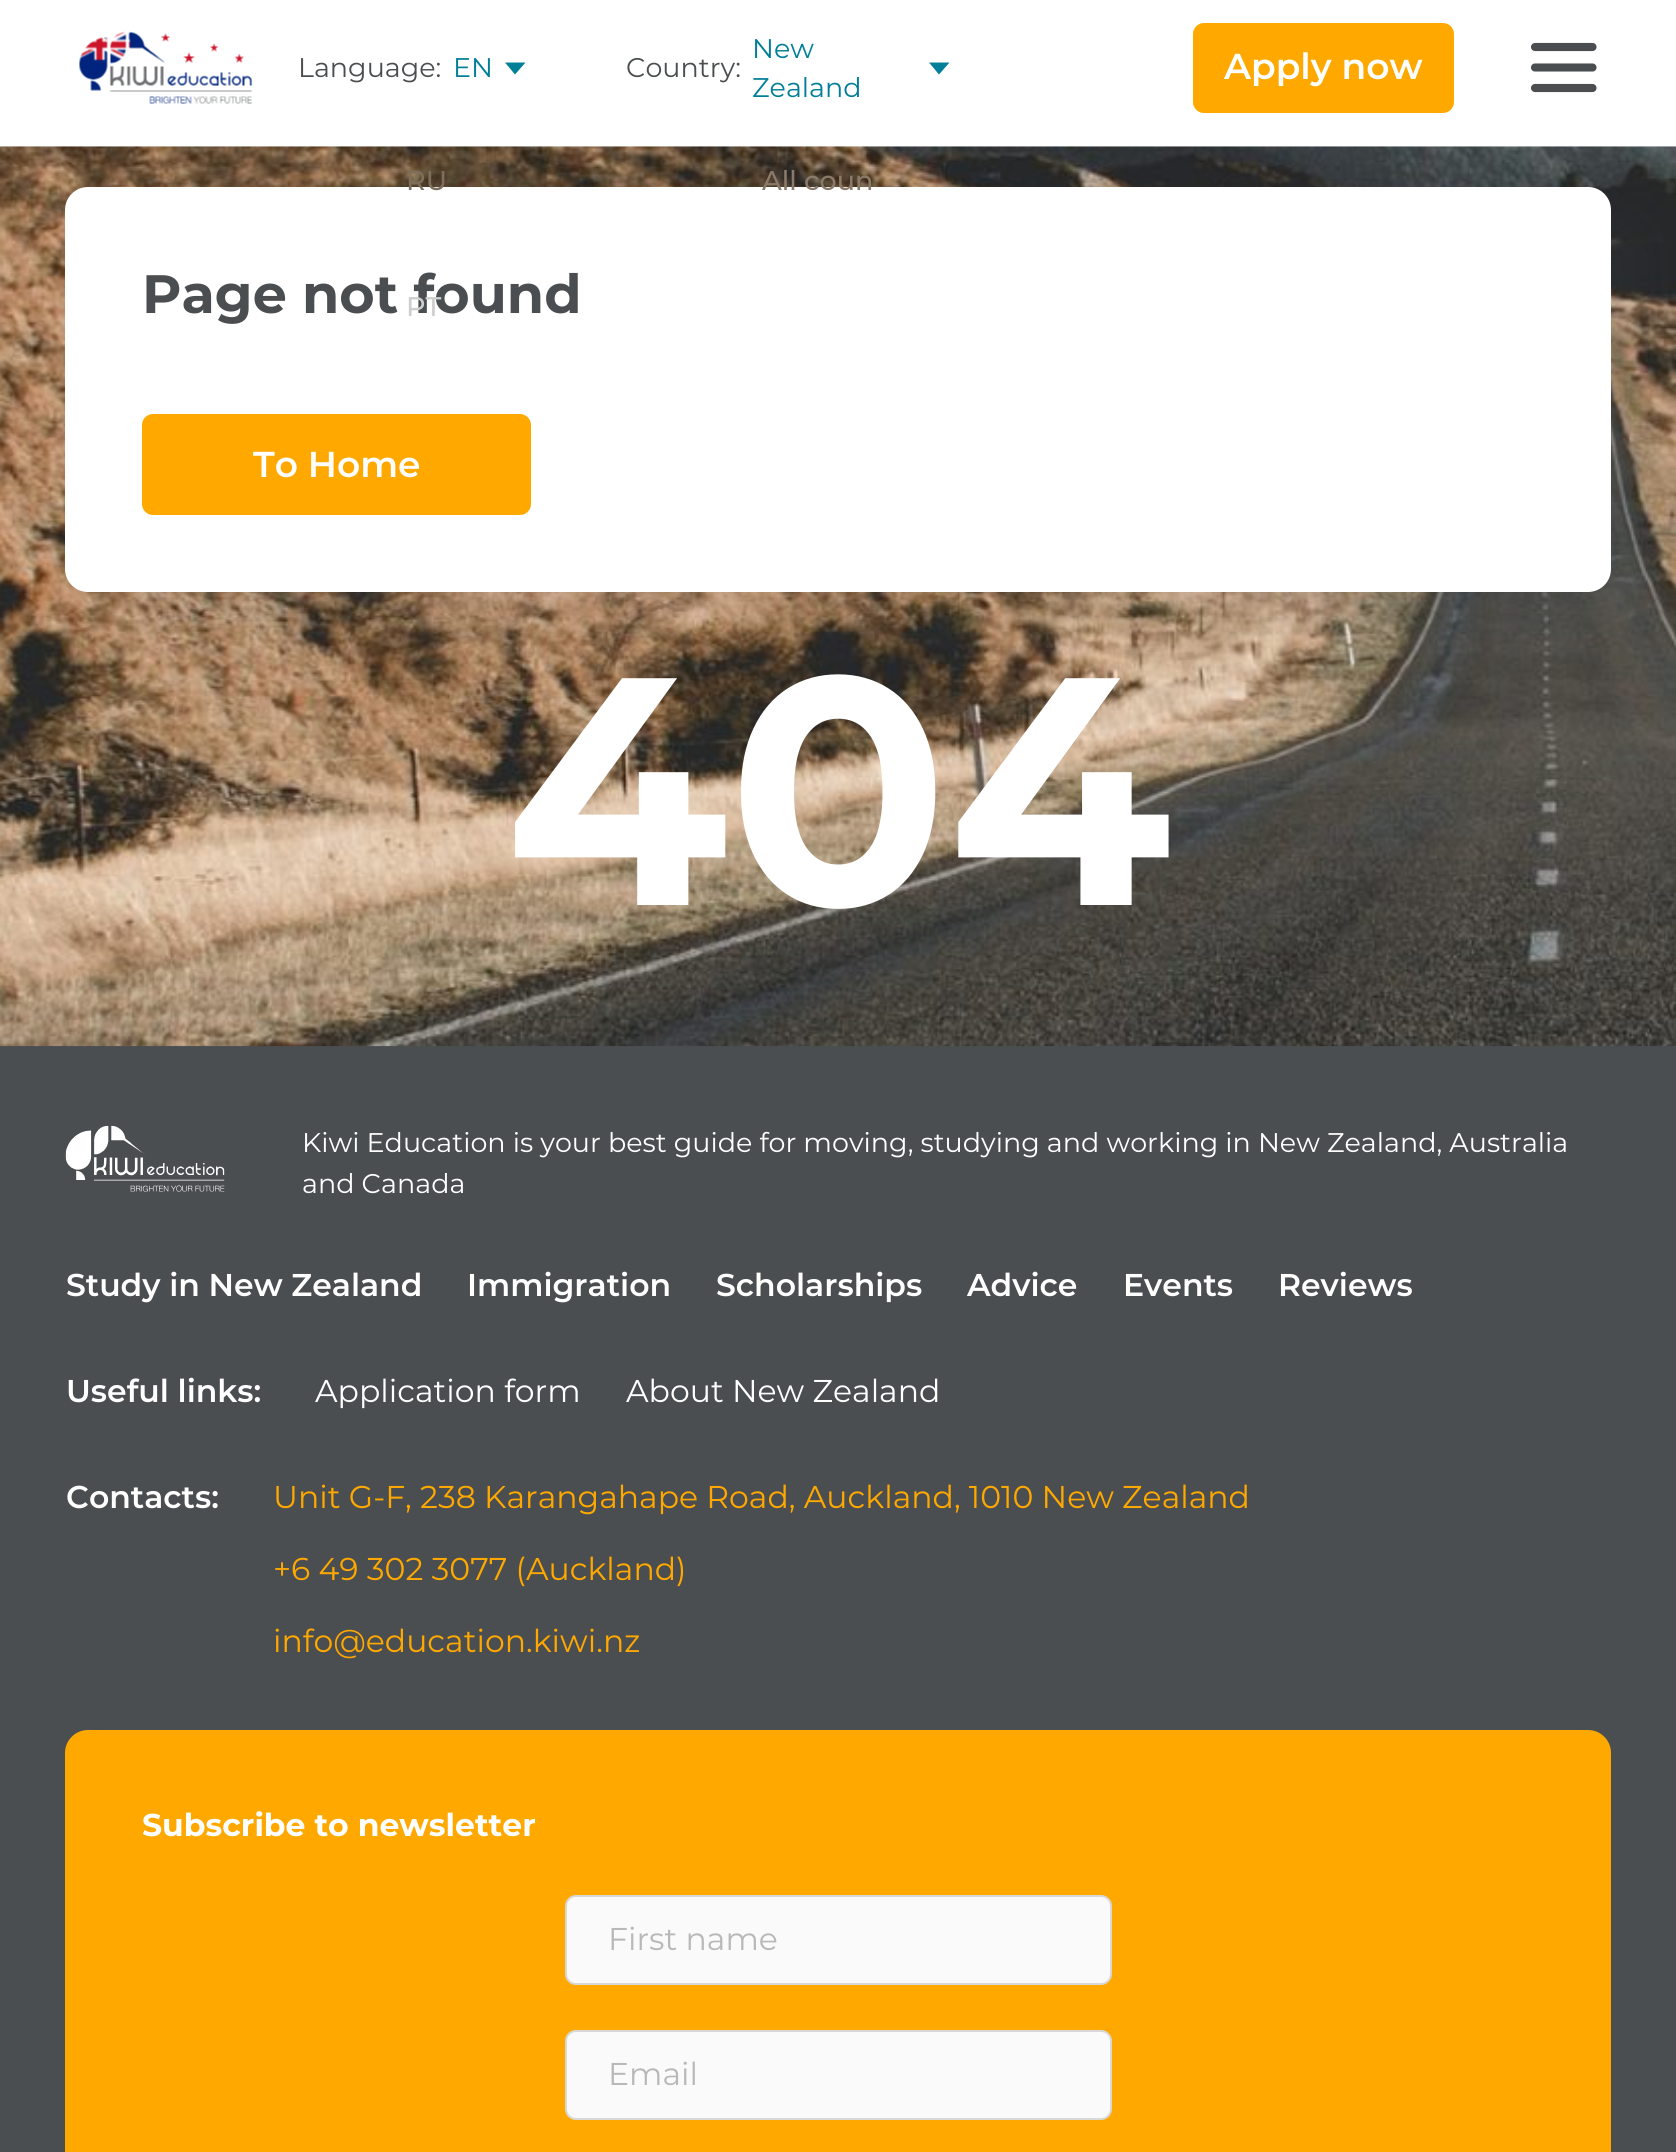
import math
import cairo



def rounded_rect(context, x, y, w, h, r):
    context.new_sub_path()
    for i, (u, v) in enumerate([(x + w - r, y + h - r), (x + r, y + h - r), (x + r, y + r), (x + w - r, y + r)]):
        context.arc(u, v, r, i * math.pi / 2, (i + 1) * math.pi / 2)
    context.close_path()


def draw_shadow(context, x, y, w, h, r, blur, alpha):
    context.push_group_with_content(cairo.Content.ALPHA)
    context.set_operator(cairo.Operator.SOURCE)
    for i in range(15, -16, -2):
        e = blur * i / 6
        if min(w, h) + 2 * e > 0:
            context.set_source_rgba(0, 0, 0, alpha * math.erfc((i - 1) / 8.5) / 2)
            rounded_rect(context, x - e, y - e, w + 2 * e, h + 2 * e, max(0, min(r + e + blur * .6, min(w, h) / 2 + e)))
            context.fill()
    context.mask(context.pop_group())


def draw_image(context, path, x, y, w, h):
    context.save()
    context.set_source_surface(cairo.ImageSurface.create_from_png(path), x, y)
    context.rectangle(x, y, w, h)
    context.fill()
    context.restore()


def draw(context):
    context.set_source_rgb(1, 1, 1)
    context.paint()
    draw_image(context, "images/1.png", 79, 31, 174, 73)
    context.set_source_rgb(1 / 255, 126 / 255, 152 / 255)
    context.new_path()
    context.move_to(515, 74.5)
    context.line_to(505, 62.5)
    context.line_to(525.5, 62.5)
    context.close_path()
    context.fill()
    context.new_path()
    context.move_to(939, 74.5)
    context.line_to(929, 62.5)
    context.line_to(949.5, 62.5)
    context.close_path()
    context.fill()
    context.set_source_rgb(1, 169 / 255, 0)
    rounded_rect(context, 1193, 23, 261, 90, 11)
    context.fill()
    context.new_path()
    context.move_to(1535, 47)
    context.line_to(1592.5, 47)
    context.move_to(1535, 67.5)
    context.line_to(1592.5, 67.5)
    context.move_to(1535, 88)
    context.line_to(1592.5, 88)
    context.set_source_rgb(75 / 255, 78 / 255, 80 / 255)
    context.set_line_width(8.1)
    context.set_line_cap(cairo.LineCap.ROUND)
    context.stroke()
    context.rectangle(0, 1046, 1676, 1106)
    context.fill()
    draw_image(context, "images/2.png", 0, 146, 1676, 901)
    context.set_source_rgb(72 / 255, 90 / 255, 103 / 255)
    draw_shadow(context, 92, 227, 1546, 405, 23, 20, 0.1)
    context.set_source_rgb(1, 1, 1)
    rounded_rect(context, 65, 187, 1546, 405, 23)
    context.fill()
    context.set_source_rgb(1, 169 / 255, 0)
    rounded_rect(context, 142, 414, 389, 101, 11)
    context.fill()
    draw_image(context, "images/3.png", 65, 1125, 160, 67)
    rounded_rect(context, 65, 1730, 1546, 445, 23)
    context.fill()
    context.set_source_rgb(250 / 255, 250 / 255, 250 / 255)
    rounded_rect(context, 566, 1896, 545, 88, 10)
    context.fill_preserve()
    context.set_source_rgb(216 / 255, 216 / 255, 216 / 255)
    context.set_line_width(2)
    context.set_line_cap(cairo.LineCap.BUTT)
    context.stroke()
    context.set_source_rgb(250 / 255, 250 / 255, 250 / 255)
    rounded_rect(context, 566, 2031, 545, 88, 10)
    context.fill_preserve()
    context.set_source_rgb(216 / 255, 216 / 255, 216 / 255)
    context.stroke()
    context.select_font_face("Montserrat")
    context.set_font_size(27)
    context.set_source_rgb(75 / 255, 78 / 255, 80 / 255)
    context.move_to(298, 77)
    context.show_text("Language:")
    context.set_source_rgb(1 / 255, 126 / 255, 152 / 255)
    context.move_to(453, 77)
    context.show_text("EN")
    context.select_font_face("Montserrat Medium")
    context.set_source_rgb(125 / 255, 111 / 255, 92 / 255)
    context.move_to(406, 190)
    context.show_text("RU")
    context.select_font_face("Montserrat")
    context.set_source_rgb(75 / 255, 78 / 255, 80 / 255)
    context.move_to(626, 77)
    context.show_text("Country:")
    context.set_source_rgb(1 / 255, 126 / 255, 152 / 255)
    context.move_to(752, 58)
    context.show_text("New")
    context.move_to(752, 97)
    context.show_text("Zealand")
    context.select_font_face("Montserrat Medium")
    context.set_source_rgb(138 / 255, 122 / 255, 106 / 255)
    context.move_to(762, 190)
    context.show_text("All coun")
    context.select_font_face("Montserrat SemiBold")
    context.set_font_size(36)
    context.set_source_rgb(1, 1, 1)
    context.move_to(1224, 79)
    context.show_text("Apply now")
    context.select_font_face("Montserrat", cairo.FontSlant.NORMAL, cairo.FontWeight.BOLD)
    context.set_font_size(54)
    context.set_source_rgb(75 / 255, 78 / 255, 80 / 255)
    context.move_to(142, 313)
    context.show_text("Page not found")
    context.select_font_face("Montserrat Medium")
    context.set_font_size(27)
    context.set_source_rgb(205 / 255, 206 / 255, 207 / 255)
    context.move_to(406, 316)
    context.show_text("PT")
    context.select_font_face("Montserrat SemiBold")
    context.set_font_size(36)
    context.set_source_rgb(1, 1, 1)
    context.move_to(253, 477)
    context.show_text("To Home")
    context.select_font_face("Montserrat", cairo.FontSlant.NORMAL, cairo.FontWeight.BOLD)
    context.set_font_size(324)
    context.move_to(505, 905)
    context.show_text("404")
    context.select_font_face("Montserrat")
    context.set_font_size(27)
    context.move_to(302, 1152)
    context.show_text("Kiwi Education is your best guide for moving, studying and working in New Zealand, Australia")
    context.move_to(302, 1193)
    context.show_text("and Canada")
    context.select_font_face("Montserrat SemiBold")
    context.set_font_size(31.5)
    context.move_to(66, 1296)
    context.show_text("Study in New Zealand")
    context.move_to(467, 1296)
    context.show_text("Immigration")
    context.move_to(716, 1296)
    context.show_text("Scholarships")
    context.move_to(967, 1296)
    context.show_text("Advice")
    context.move_to(1123, 1296)
    context.show_text("Events")
    context.move_to(1278, 1296)
    context.show_text("Reviews")
    context.move_to(66, 1402)
    context.show_text("Useful links:")
    context.select_font_face("Montserrat")
    context.move_to(315, 1402)
    context.show_text("Application form")
    context.move_to(626, 1402)
    context.show_text("About New Zealand")
    context.select_font_face("Montserrat SemiBold")
    context.move_to(66, 1508)
    context.show_text("Contacts:")
    context.select_font_face("Montserrat")
    context.set_source_rgb(1, 169 / 255, 0)
    context.move_to(273, 1508)
    context.show_text("Unit G-F, 238 Karangahape Road, Auckland, 1010 New Zealand")
    context.move_to(273, 1580)
    context.show_text("+6 49 302 3077 (Auckland)")
    context.move_to(273, 1652)
    context.show_text("info@education.kiwi.nz")
    context.select_font_face("Montserrat", cairo.FontSlant.NORMAL, cairo.FontWeight.BOLD)
    context.set_source_rgb(1, 1, 1)
    context.move_to(142, 1836)
    context.show_text("Subscribe to newsletter")
    context.select_font_face("Montserrat")
    context.set_source_rgb(184 / 255, 184 / 255, 184 / 255)
    context.move_to(608, 1950)
    context.show_text("First name")
    context.move_to(608, 2085)
    context.show_text("Email")


surface = cairo.ImageSurface(cairo.Format.RGB24, 1676, 2152)
context = cairo.Context(surface)
options = cairo.FontOptions()
options.set_hint_metrics(cairo.HintMetrics.OFF)
options.set_hint_style(cairo.HintStyle.NONE)
context.set_font_options(options)
context.set_miter_limit(4)
draw(context)
surface.write_to_png("out.png")
